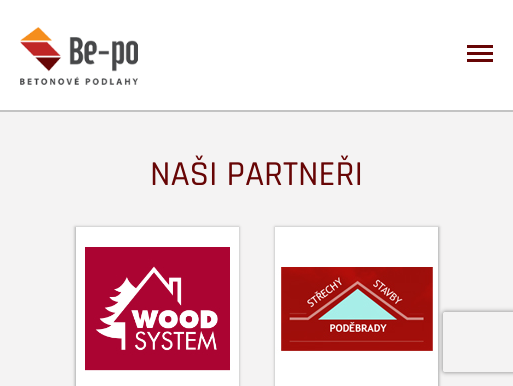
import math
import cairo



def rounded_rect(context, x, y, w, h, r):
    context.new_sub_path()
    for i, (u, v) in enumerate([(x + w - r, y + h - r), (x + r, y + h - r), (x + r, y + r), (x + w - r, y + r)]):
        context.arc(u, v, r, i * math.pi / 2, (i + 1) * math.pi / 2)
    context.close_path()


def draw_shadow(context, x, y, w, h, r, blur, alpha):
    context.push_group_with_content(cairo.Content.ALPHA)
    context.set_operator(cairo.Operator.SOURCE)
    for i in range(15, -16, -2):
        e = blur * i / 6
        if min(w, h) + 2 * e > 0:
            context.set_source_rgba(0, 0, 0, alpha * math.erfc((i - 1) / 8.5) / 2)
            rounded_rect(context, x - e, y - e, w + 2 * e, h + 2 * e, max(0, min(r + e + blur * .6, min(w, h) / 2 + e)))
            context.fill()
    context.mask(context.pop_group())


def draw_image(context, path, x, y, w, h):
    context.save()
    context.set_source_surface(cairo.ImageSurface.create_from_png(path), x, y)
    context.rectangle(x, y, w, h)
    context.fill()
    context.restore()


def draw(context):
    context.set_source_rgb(1, 1, 1)
    context.paint()
    context.set_source_rgb(195 / 255, 195 / 255, 195 / 255)
    context.rectangle(0, 110, 513, 2)
    context.fill()
    draw_image(context, "images/1.png", 20, 27, 118, 58)
    draw_image(context, "images/2.png", 467, 45, 26, 17)
    context.set_source_rgb(244 / 255, 243 / 255, 243 / 255)
    context.rectangle(0, 112, 513, 274)
    context.fill()
    context.set_source_rgb(170 / 255, 170 / 255, 170 / 255)
    draw_shadow(context, 75, 227, 164, 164, 0, 1.5, 1)
    draw_image(context, "images/3.png", 76, 227, 163, 159)
    draw_shadow(context, 275, 227, 164, 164, 0, 1.5, 1)
    draw_image(context, "images/4.png", 275, 227, 163, 159)
    context.save()
    context.set_fill_rule(cairo.FillRule.EVEN_ODD)
    context.new_path()
    context.move_to(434, 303)
    context.line_to(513, 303)
    context.line_to(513, 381)
    context.line_to(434, 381)
    context.close_path()
    context.move_to(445, 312)
    context.line_to(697, 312)
    context.curve_to(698, 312, 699, 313, 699, 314)
    context.line_to(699, 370)
    context.curve_to(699, 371, 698, 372, 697, 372)
    context.line_to(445, 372)
    context.curve_to(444, 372, 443, 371, 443, 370)
    context.line_to(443, 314)
    context.curve_to(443, 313, 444, 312, 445, 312)
    context.close_path()
    context.clip()
    context.set_source_rgb(128 / 255, 128 / 255, 128 / 255)
    draw_shadow(context, 443, 312, 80, 60, 2, 2.5, 1)
    context.restore()
    context.select_font_face("Rajdhani Medium")
    context.set_font_size(35.25)
    context.set_source_rgb(103 / 255, 5 / 255, 5 / 255)
    context.move_to(150, 185)
    context.show_text("NAŠI PARTNEŘI")


surface = cairo.ImageSurface(cairo.Format.RGB24, 513, 386)
context = cairo.Context(surface)
options = cairo.FontOptions()
options.set_hint_metrics(cairo.HintMetrics.OFF)
options.set_hint_style(cairo.HintStyle.NONE)
context.set_font_options(options)
context.set_miter_limit(4)
draw(context)
surface.write_to_png("out.png")
